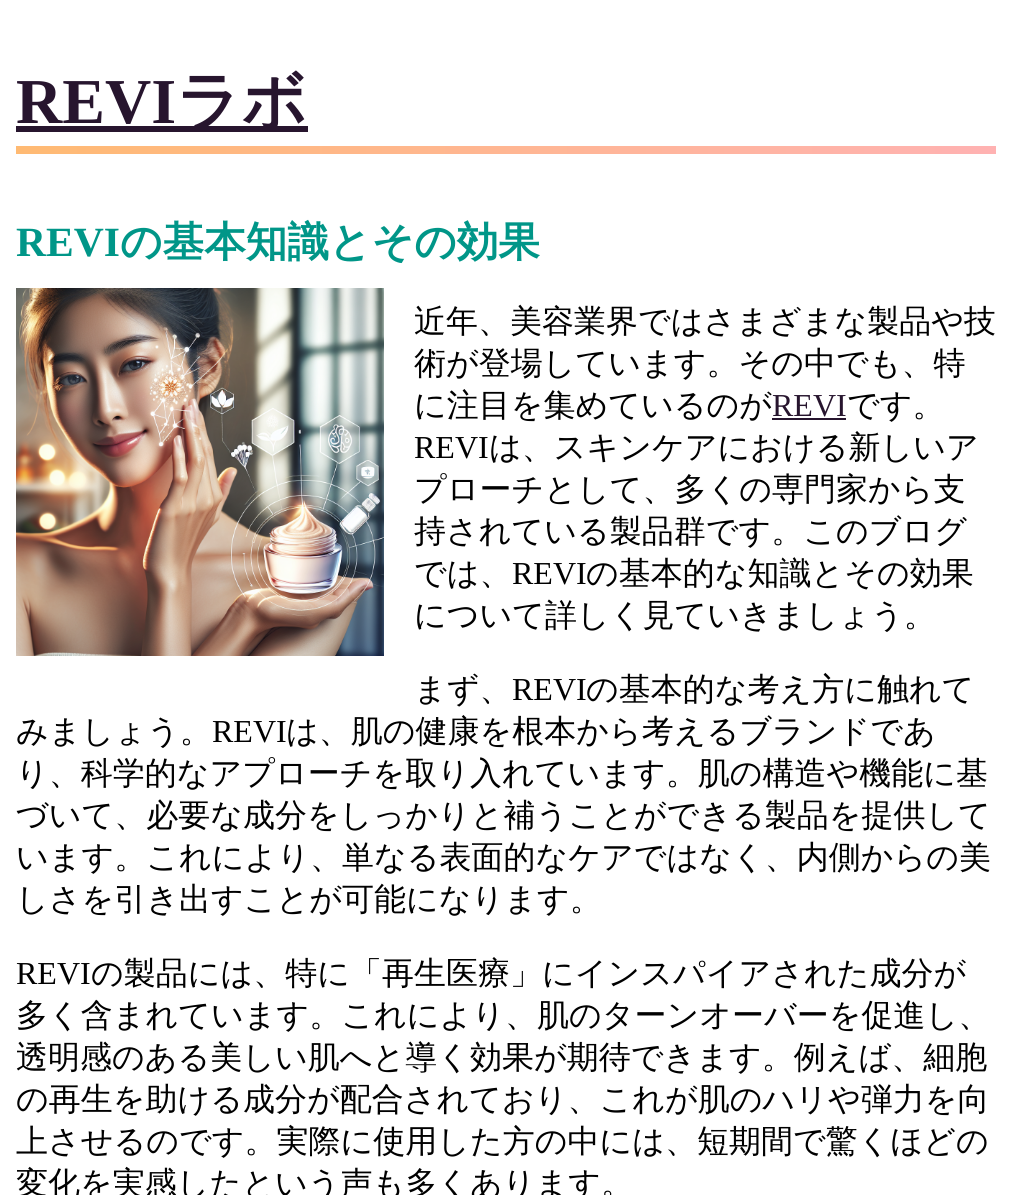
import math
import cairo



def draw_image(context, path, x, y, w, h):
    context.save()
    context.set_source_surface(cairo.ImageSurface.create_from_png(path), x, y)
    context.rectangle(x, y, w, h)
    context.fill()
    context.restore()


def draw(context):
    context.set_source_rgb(1, 1, 1)
    context.paint()
    context.set_source_rgb(39 / 255, 21 / 255, 46 / 255)
    context.rectangle(16, 126, 292, 6)
    context.fill()
    gradient = cairo.LinearGradient(16, 150, 996, 150)
    gradient.add_color_stop_rgba(0, 1, 186 / 255, 115 / 255, 1)
    gradient.add_color_stop_rgba(1, 1, 178 / 255, 178 / 255, 1)
    context.set_source(gradient)
    context.rectangle(16, 146, 980, 8)
    context.fill()
    draw_image(context, "images/1.png", 16, 288, 368, 368)
    context.set_source_rgb(39 / 255, 21 / 255, 46 / 255)
    context.rectangle(772, 418, 74, 2)
    context.fill()
    context.select_font_face("Liberation Serif", cairo.FontSlant.NORMAL, cairo.FontWeight.BOLD)
    context.set_font_size(64)
    context.move_to(16, 123)
    context.show_text("REVI")
    context.select_font_face("WenQuanYi Zen Hei", cairo.FontSlant.NORMAL, cairo.FontWeight.BOLD)
    context.move_to(176, 123)
    context.show_text("ラボ")
    context.select_font_face("Liberation Serif", cairo.FontSlant.NORMAL, cairo.FontWeight.BOLD)
    context.set_font_size(41.6)
    context.set_source_rgb(0, 150 / 255, 136 / 255)
    context.move_to(16, 256)
    context.show_text("REVI")
    context.select_font_face("WenQuanYi Zen Hei", cairo.FontSlant.NORMAL, cairo.FontWeight.BOLD)
    context.move_to(120, 256)
    context.show_text("の基本知識とその効果")
    context.select_font_face("WenQuanYi Zen Hei Medium")
    context.set_font_size(32)
    context.set_source_rgb(0, 0, 0)
    context.move_to(414, 332)
    context.show_text("近年、美容業界ではさまざまな製品や技")
    context.move_to(414, 374)
    context.show_text("術が登場しています。その中でも、特")
    context.move_to(414, 416)
    context.show_text("に注目を集めているのが")
    context.select_font_face("Liberation Serif")
    context.set_source_rgb(39 / 255, 21 / 255, 46 / 255)
    context.move_to(772, 416)
    context.show_text("REVI")
    context.select_font_face("WenQuanYi Zen Hei Medium")
    context.set_source_rgb(0, 0, 0)
    context.move_to(847, 416)
    context.show_text("です。")
    context.select_font_face("Liberation Serif")
    context.move_to(414, 458)
    context.show_text("REVI")
    context.select_font_face("WenQuanYi Zen Hei Medium")
    context.move_to(489, 458)
    context.show_text("は、スキンケアにおける新しいア")
    context.move_to(414, 500)
    context.show_text("プローチとして、多くの専門家から支")
    context.move_to(414, 542)
    context.show_text("持されている製品群です。このブログ")
    context.move_to(414, 584)
    context.show_text("では、")
    context.select_font_face("Liberation Serif")
    context.move_to(512, 584)
    context.show_text("REVI")
    context.select_font_face("WenQuanYi Zen Hei Medium")
    context.move_to(586, 584)
    context.show_text("の基本的な知識とその効果")
    context.move_to(414, 626)
    context.show_text("について詳しく見ていきましょう。")
    context.move_to(414, 700)
    context.show_text("まず、")
    context.select_font_face("Liberation Serif")
    context.move_to(512, 700)
    context.show_text("REVI")
    context.select_font_face("WenQuanYi Zen Hei Medium")
    context.move_to(586, 700)
    context.show_text("の基本的な考え方に触れて")
    context.move_to(16, 742)
    context.show_text("みましょう。")
    context.select_font_face("Liberation Serif")
    context.move_to(212, 742)
    context.show_text("REVI")
    context.select_font_face("WenQuanYi Zen Hei Medium")
    context.move_to(286, 742)
    context.show_text("は、肌の健康を根本から考えるブランドであ")
    context.move_to(16, 784)
    context.show_text("り、科学的なアプローチを取り入れています。肌の構造や機能に基")
    context.move_to(16, 826)
    context.show_text("づいて、必要な成分をしっかりと補うことができる製品を提供して")
    context.move_to(16, 868)
    context.show_text("います。これにより、単なる表面的なケアではなく、内側からの美")
    context.move_to(16, 910)
    context.show_text("しさを引き出すことが可能になります。")
    context.select_font_face("Liberation Serif")
    context.move_to(16, 984)
    context.show_text("REVI")
    context.select_font_face("WenQuanYi Zen Hei Medium")
    context.move_to(91, 984)
    context.show_text("の製品には、特に「再生医療」にインスパイアされた成分が")
    context.move_to(16, 1026)
    context.show_text("多く含まれています。これにより、肌のターンオーバーを促進し、")
    context.move_to(16, 1068)
    context.show_text("透明感のある美しい肌へと導く効果が期待できます。例えば、細胞")
    context.move_to(16, 1110)
    context.show_text("の再生を助ける成分が配合されており、これが肌のハリや弾力を向")
    context.move_to(16, 1152)
    context.show_text("上させるのです。実際に使用した方の中には、短期間で驚くほどの")
    context.move_to(16, 1194)
    context.show_text("変化を実感したという声も多くあります。")


surface = cairo.ImageSurface(cairo.Format.RGB24, 1012, 1195)
context = cairo.Context(surface)
options = cairo.FontOptions()
options.set_hint_metrics(cairo.HintMetrics.OFF)
options.set_hint_style(cairo.HintStyle.NONE)
context.set_font_options(options)
context.set_miter_limit(4)
draw(context)
surface.write_to_png("out.png")
